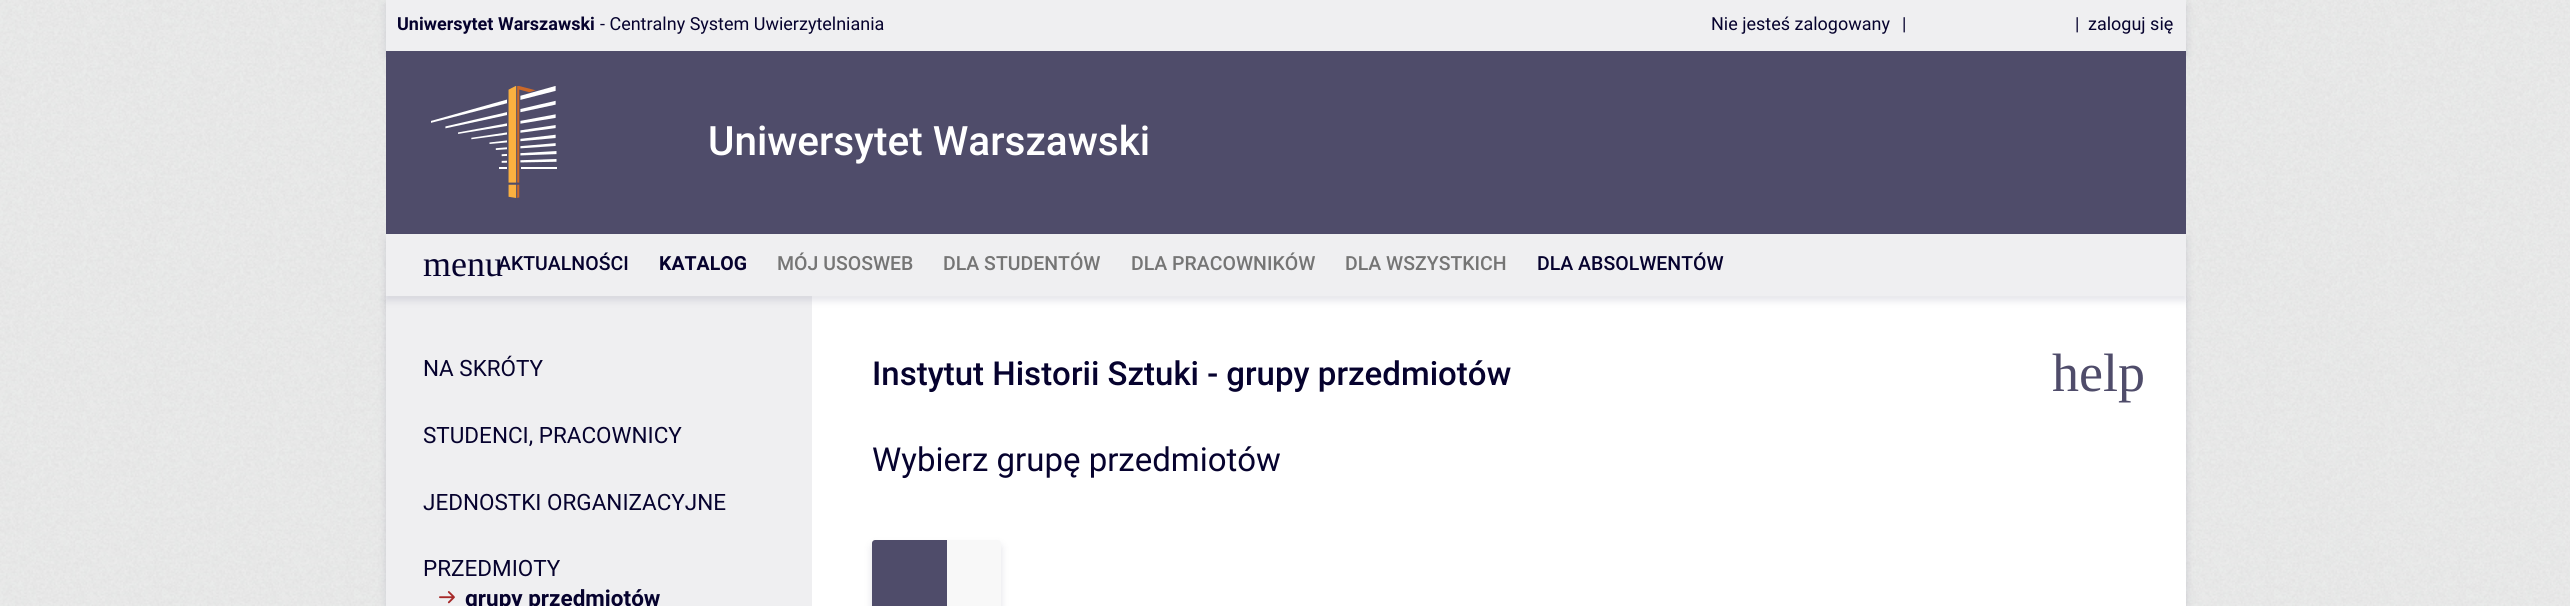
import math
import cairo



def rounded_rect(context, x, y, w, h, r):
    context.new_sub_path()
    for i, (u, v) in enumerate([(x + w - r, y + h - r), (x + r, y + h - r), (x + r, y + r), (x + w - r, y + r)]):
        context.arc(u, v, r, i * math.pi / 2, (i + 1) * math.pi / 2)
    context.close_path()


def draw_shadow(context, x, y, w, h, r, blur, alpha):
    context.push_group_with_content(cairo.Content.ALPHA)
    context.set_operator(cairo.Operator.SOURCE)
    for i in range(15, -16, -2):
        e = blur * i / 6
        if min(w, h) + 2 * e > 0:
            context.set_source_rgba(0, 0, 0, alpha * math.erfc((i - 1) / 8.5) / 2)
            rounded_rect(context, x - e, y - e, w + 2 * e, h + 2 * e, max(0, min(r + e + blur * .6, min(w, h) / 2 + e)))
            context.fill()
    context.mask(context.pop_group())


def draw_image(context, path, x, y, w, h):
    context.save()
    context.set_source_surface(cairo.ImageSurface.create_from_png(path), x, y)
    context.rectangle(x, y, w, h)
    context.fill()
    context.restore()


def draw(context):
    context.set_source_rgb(1, 1, 1)
    context.paint()
    draw_image(context, "images/1.png", 0, 0, 2570, 606)
    context.set_source_rgb(6 / 255, 6 / 255, 51 / 255)
    draw_shadow(context, 386, 5, 1800, 51, 0, 4.5, 0.12)
    context.set_source_rgb(239 / 255, 239 / 255, 241 / 255)
    context.rectangle(386, 0, 1800, 51)
    context.fill()
    context.set_source_rgb(79 / 255, 76 / 255, 106 / 255)
    context.rectangle(386, 51, 1800, 183)
    context.fill()
    draw_image(context, "images/2.png", 431, 86, 126, 112)
    context.set_source_rgb(6 / 255, 6 / 255, 51 / 255)
    draw_shadow(context, 386, 300, 1800, 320, 0, 4.5, 0.12)
    context.set_source_rgb(1, 1, 1)
    context.rectangle(812, 296, 1374, 310)
    context.fill()
    context.set_source_rgb(239 / 255, 239 / 255, 241 / 255)
    context.rectangle(386, 296, 426, 310)
    context.fill()
    context.set_source_rgb(6 / 255, 6 / 255, 51 / 255)
    draw_shadow(context, 386, 239, 1800, 61, 0, 4.5, 0.12)
    context.set_source_rgb(239 / 255, 239 / 255, 241 / 255)
    context.rectangle(386, 234, 1800, 62)
    context.fill()
    draw_image(context, "images/3.png", 439, 591, 16, 13)
    context.set_source_rgb(6 / 255, 6 / 255, 51 / 255)
    draw_shadow(context, 872, 545, 129, 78, 3, 4.5, 0.12)
    context.set_source_rgb(79 / 255, 76 / 255, 106 / 255)
    context.new_path()
    context.move_to(875, 540)
    context.line_to(947, 540)
    context.line_to(947, 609)
    context.line_to(875, 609)
    context.curve_to(873.5, 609, 872, 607.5, 872, 606)
    context.line_to(872, 543)
    context.curve_to(872, 541.5, 873.5, 540, 875, 540)
    context.close_path()
    context.fill()
    context.set_source_rgb(248 / 255, 248 / 255, 248 / 255)
    context.new_path()
    context.move_to(947, 540)
    context.line_to(998, 540)
    context.curve_to(999.5, 540, 1001, 541.5, 1001, 543)
    context.line_to(1001, 606)
    context.curve_to(1001, 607.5, 999.5, 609, 998, 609)
    context.line_to(947, 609)
    context.close_path()
    context.fill()
    context.select_font_face("Roboto", cairo.FontSlant.NORMAL, cairo.FontWeight.BOLD)
    context.set_font_size(18)
    context.set_source_rgb(6 / 255, 2 / 255, 46 / 255)
    context.move_to(397, 30)
    context.show_text("Uniwersytet Warszawski")
    context.select_font_face("Roboto")
    context.move_to(600, 30)
    context.show_text("- Centralny System Uwierzytelniania")
    context.move_to(1711, 30)
    context.show_text("Nie jesteś zalogowany")
    context.move_to(1902, 30)
    context.show_text("|")
    context.move_to(2075, 30)
    context.show_text("|")
    context.move_to(2088, 30)
    context.show_text("zaloguj się")
    context.select_font_face("Roboto Medium")
    context.set_font_size(40.5)
    context.set_source_rgb(1, 1, 1)
    context.move_to(708, 155)
    context.show_text("Uniwersytet Warszawski")
    context.select_font_face("Liberation Serif")
    context.set_font_size(36)
    context.set_source_rgb(6 / 255, 2 / 255, 46 / 255)
    context.move_to(423, 276)
    context.show_text("menu")
    context.select_font_face("Roboto Medium")
    context.set_font_size(19.5)
    context.move_to(498, 270)
    context.show_text("AKTUALNOŚCI")
    context.select_font_face("Roboto", cairo.FontSlant.NORMAL, cairo.FontWeight.BOLD)
    context.move_to(659, 270)
    context.show_text("KATALOG")
    context.select_font_face("Roboto Medium")
    context.set_source_rgb(117 / 255, 117 / 255, 117 / 255)
    context.move_to(777, 270)
    context.show_text("MÓJ USOSWEB")
    context.move_to(943, 270)
    context.show_text("DLA STUDENTÓW")
    context.move_to(1131, 270)
    context.show_text("DLA PRACOWNIKÓW")
    context.move_to(1345, 270)
    context.show_text("DLA WSZYSTKICH")
    context.set_source_rgb(6 / 255, 2 / 255, 46 / 255)
    context.move_to(1537, 270)
    context.show_text("DLA ABSOLWENTÓW")
    context.select_font_face("Roboto")
    context.set_font_size(22.5)
    context.move_to(423, 376)
    context.show_text("NA SKRÓTY")
    context.move_to(423, 443)
    context.show_text("STUDENCI, PRACOWNICY")
    context.move_to(423, 510)
    context.show_text("JEDNOSTKI ORGANIZACYJNE")
    context.move_to(423, 576)
    context.show_text("PRZEDMIOTY")
    context.select_font_face("Roboto", cairo.FontSlant.NORMAL, cairo.FontWeight.BOLD)
    context.move_to(465, 606)
    context.show_text("grupy przedmiotów")
    context.select_font_face("Roboto Medium")
    context.set_font_size(33)
    context.move_to(872, 385)
    context.show_text("Instytut Historii Sztuki - grupy przedmiotów")
    context.select_font_face("Liberation Serif")
    context.set_font_size(54)
    context.set_source_rgb(79 / 255, 76 / 255, 106 / 255)
    context.move_to(2052, 391)
    context.show_text("help")
    context.select_font_face("Roboto")
    context.set_font_size(33)
    context.set_source_rgb(6 / 255, 2 / 255, 46 / 255)
    context.move_to(872, 471)
    context.show_text("Wybierz grupę przedmiotów")


surface = cairo.ImageSurface(cairo.Format.RGB24, 2570, 606)
context = cairo.Context(surface)
options = cairo.FontOptions()
options.set_hint_metrics(cairo.HintMetrics.OFF)
options.set_hint_style(cairo.HintStyle.NONE)
context.set_font_options(options)
context.set_miter_limit(4)
draw(context)
surface.write_to_png("out.png")
